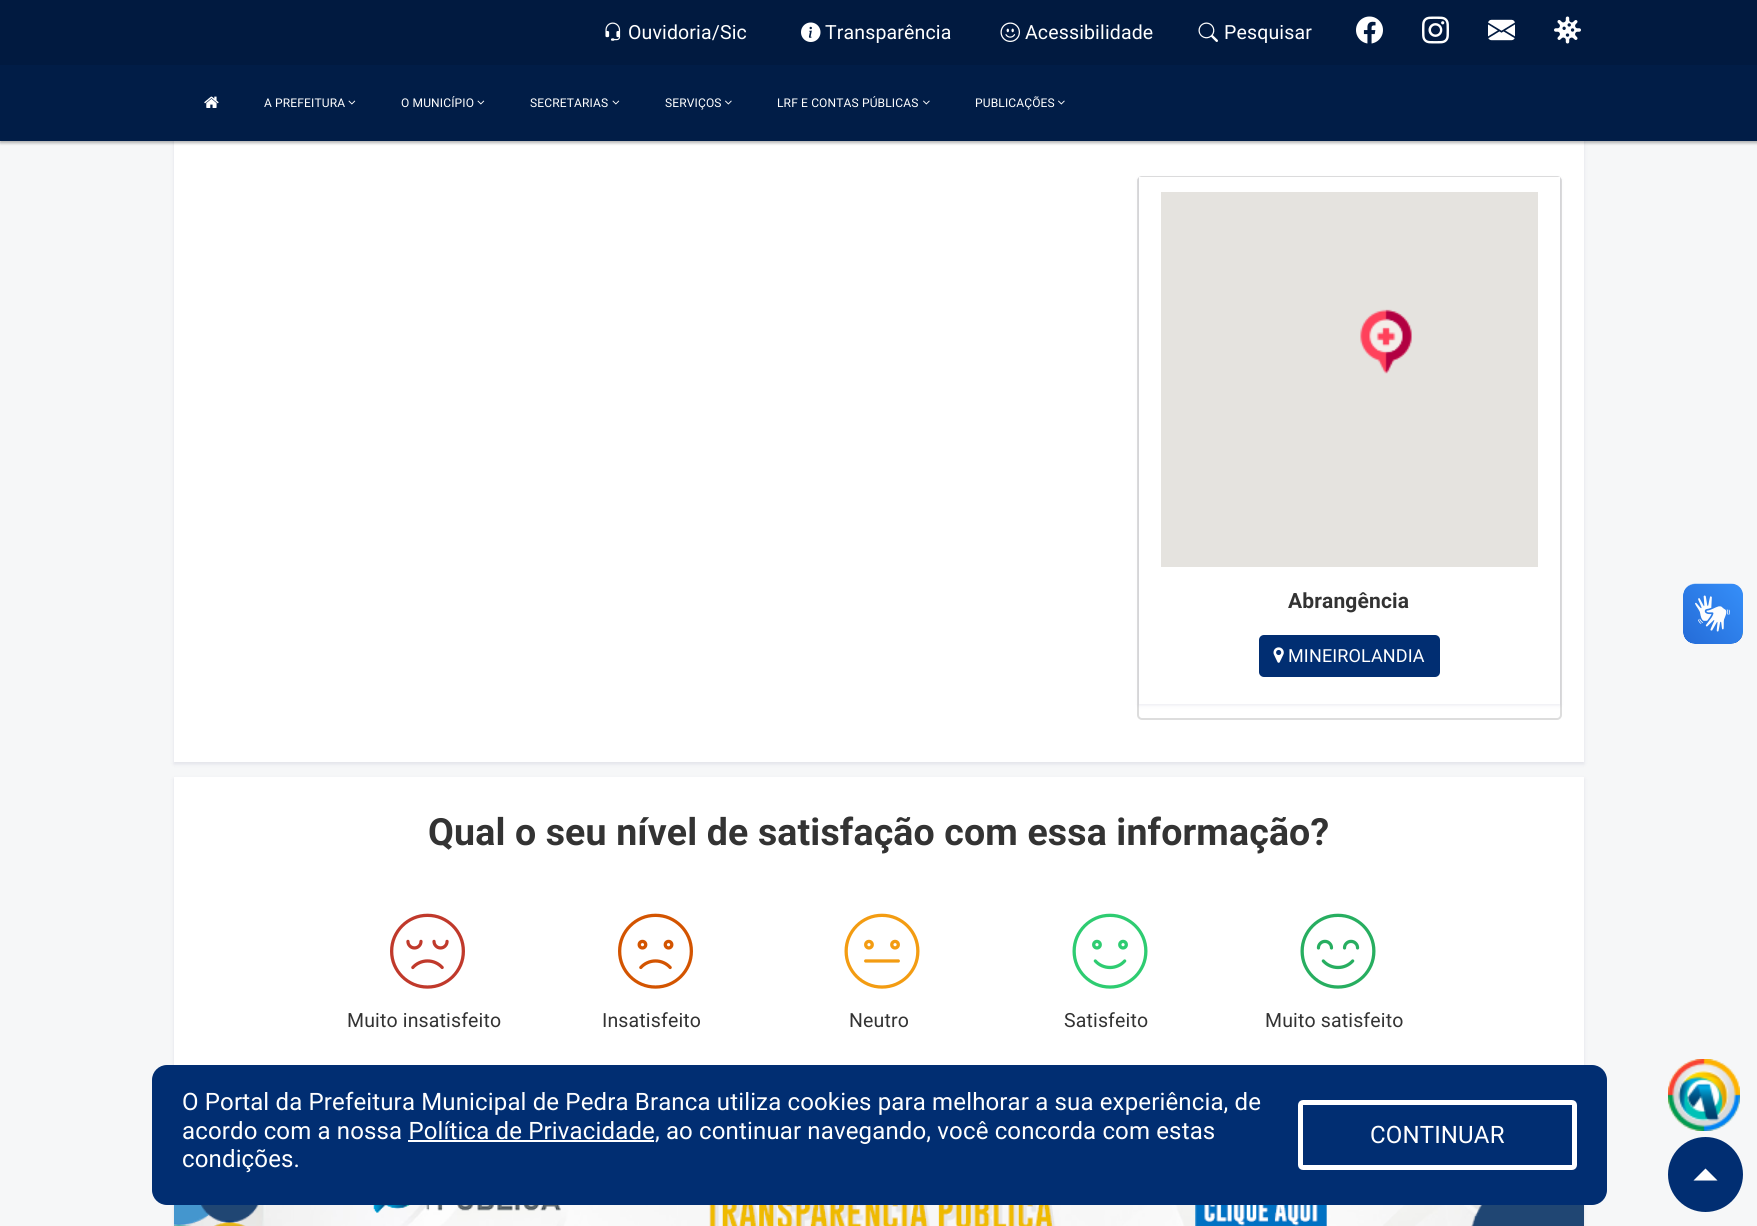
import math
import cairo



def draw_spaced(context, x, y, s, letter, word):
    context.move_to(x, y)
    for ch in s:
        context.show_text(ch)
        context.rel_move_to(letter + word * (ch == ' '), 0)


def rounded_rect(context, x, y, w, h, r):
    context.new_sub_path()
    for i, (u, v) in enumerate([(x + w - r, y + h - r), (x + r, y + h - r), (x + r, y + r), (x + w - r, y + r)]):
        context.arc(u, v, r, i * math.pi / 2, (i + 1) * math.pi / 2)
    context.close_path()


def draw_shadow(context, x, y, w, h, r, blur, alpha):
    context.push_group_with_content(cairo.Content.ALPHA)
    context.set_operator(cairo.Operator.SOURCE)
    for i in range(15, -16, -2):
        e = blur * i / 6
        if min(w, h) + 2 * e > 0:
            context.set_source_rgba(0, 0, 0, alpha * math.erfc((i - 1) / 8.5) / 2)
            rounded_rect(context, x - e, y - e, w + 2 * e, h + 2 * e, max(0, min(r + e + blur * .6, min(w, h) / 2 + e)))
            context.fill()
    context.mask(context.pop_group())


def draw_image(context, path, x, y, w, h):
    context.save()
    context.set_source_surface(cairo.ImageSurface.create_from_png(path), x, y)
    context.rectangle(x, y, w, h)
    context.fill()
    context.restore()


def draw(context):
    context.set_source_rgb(246 / 255, 247 / 255, 248 / 255)
    context.paint()
    context.set_source_rgb(3 / 255, 0, 71 / 255)
    draw_shadow(context, 174, -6, 1410, 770, 0, 2, 0.09)
    context.set_source_rgb(1, 1, 1)
    context.rectangle(174, 141, 1410, 621)
    context.fill()
    context.set_source_rgb(0, 0, 0)
    draw_shadow(context, 0, 2, 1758, 141, 0, 1.5, 0.3)
    context.set_source_rgb(1 / 255, 26 / 255, 64 / 255)
    context.rectangle(0, 0, 1757, 65)
    context.fill()
    draw_image(context, "images/1.png", 605, 22, 16, 19)
    draw_image(context, "images/2.png", 801, 22, 20, 20)
    draw_image(context, "images/3.png", 1000, 22, 20, 20)
    draw_image(context, "images/4.png", 1198, 22, 20, 20)
    draw_image(context, "images/5.png", 1356, 16, 27, 28)
    draw_image(context, "images/6.png", 1422, 16, 27, 28)
    draw_image(context, "images/7.png", 1488, 19, 27, 22)
    draw_image(context, "images/8.png", 1554, 16, 27, 28)
    context.set_source_rgb(1 / 255, 29 / 255, 71 / 255)
    context.rectangle(0, 65, 1757, 76)
    context.fill()
    draw_image(context, "images/9.png", 204, 96, 15, 12)
    draw_image(context, "images/10.png", 348, 100, 8, 5)
    draw_image(context, "images/10.png", 477, 100, 8, 5)
    draw_image(context, "images/10.png", 612, 100, 8, 5)
    draw_image(context, "images/11.png", 725, 100, 7, 5)
    draw_image(context, "images/11.png", 923, 100, 7, 5)
    draw_image(context, "images/11.png", 1058, 100, 7, 5)
    rounded_rect(context, 1138, 177, 423, 542, 4)
    context.set_source_rgb(221 / 255, 221 / 255, 221 / 255)
    context.stroke()
    context.set_source_rgb(3 / 255, 0, 71 / 255)
    draw_shadow(context, 1139, 179, 421, 526, 0, 2, 0.09)
    context.set_source_rgb(1, 1, 1)
    context.rectangle(1139, 177, 421, 527)
    context.fill()
    context.set_source_rgb(229 / 255, 227 / 255, 223 / 255)
    context.rectangle(1161, 192, 377, 375)
    context.fill()
    draw_image(context, "images/12.png", 1360, 309, 52, 65)
    context.set_source_rgb(1 / 255, 46 / 255, 114 / 255)
    rounded_rect(context, 1259, 635, 181, 42, 5)
    context.fill()
    draw_image(context, "images/13.png", 1273, 647, 11, 16)
    draw_image(context, "images/14.png", 1683, 583, 60, 61)
    draw_image(context, "images/15.png", 1683, 584, 60, 60)
    context.set_source_rgb(3 / 255, 0, 71 / 255)
    draw_shadow(context, 174, 779, 1410, 327, 0, 2, 0.09)
    context.set_source_rgb(1, 1, 1)
    context.rectangle(174, 777, 1410, 288)
    context.fill()
    draw_image(context, "images/16.png", 390, 913, 75, 76)
    draw_image(context, "images/17.png", 618, 913, 75, 76)
    draw_image(context, "images/18.png", 844, 913, 76, 76)
    draw_image(context, "images/19.png", 1072, 913, 76, 76)
    draw_image(context, "images/20.png", 1300, 913, 76, 76)
    context.set_source_rgb(3 / 255, 0, 71 / 255)
    draw_shadow(context, 174, 1121, 1410, 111, 0, 2, 0.09)
    context.set_source_rgb(1 / 255, 46 / 255, 114 / 255)
    rounded_rect(context, 152, 1065, 1455, 140, 15)
    context.fill()
    context.set_source_rgb(1, 1, 1)
    context.rectangle(408, 1140, 246, 2)
    context.fill()
    rounded_rect(context, 1300.5, 1102.5, 274, 65, 2.5)
    context.set_line_width(5)
    context.stroke()
    draw_image(context, "images/21.png", 1668, 1059, 72, 72)
    draw_image(context, "images/22.png", 174, 1205, 1410, 21)
    context.set_source_rgb(1 / 255, 46 / 255, 114 / 255)
    context.arc(1705.5, 1174.5, 37.5, 0, 2 * math.pi)
    context.fill()
    context.set_source_rgb(1, 1, 1)
    context.new_path()
    context.move_to(1717.5, 1180.5)
    context.line_to(1693.5, 1180.5)
    context.line_to(1705.5, 1168.5)
    context.close_path()
    context.fill()
    context.select_font_face("Roboto")
    context.set_font_size(19.5)
    draw_spaced(context, 628, 39, "Ouvidoria/Sic", 0.15, 0)
    draw_spaced(context, 825, 39, "Transparência", 0.15, 0)
    draw_spaced(context, 1025, 39, "Acessibilidade", 0.15, 0)
    draw_spaced(context, 1224, 39, "Pesquisar", 0.15, 0)
    context.set_font_size(12)
    draw_spaced(context, 264, 107, "A PREFEITURA", 0.15, 0)
    draw_spaced(context, 401, 107, "O MUNICÍPIO", 0.15, 0)
    draw_spaced(context, 530, 107, "SECRETARIAS", 0.15, 0)
    draw_spaced(context, 665, 107, "SERVIÇOS", 0.15, 0)
    draw_spaced(context, 777, 107, "LRF E CONTAS PÚBLICAS", 0.15, 0)
    draw_spaced(context, 975, 107, "PUBLICAÇÕES", 0.15, 0)
    context.select_font_face("Roboto", cairo.FontSlant.NORMAL, cairo.FontWeight.BOLD)
    context.set_font_size(21)
    context.set_source_rgb(51 / 255, 51 / 255, 51 / 255)
    draw_spaced(context, 1288, 608, "Abrangência", 0.15, 0)
    context.select_font_face("Roboto")
    context.set_font_size(18)
    context.set_source_rgb(1, 1, 1)
    draw_spaced(context, 1288, 662, "MINEIROLANDIA", 0.15, 0)
    context.select_font_face("Roboto", cairo.FontSlant.NORMAL, cairo.FontWeight.BOLD)
    context.set_font_size(37.5)
    context.set_source_rgb(51 / 255, 51 / 255, 51 / 255)
    draw_spaced(context, 428, 845, "Qual o seu nível de satisfação com essa informação?", 0.15, 0)
    context.select_font_face("Roboto")
    context.set_font_size(19.5)
    draw_spaced(context, 347, 1027, "Muito insatisfeito", 0.15, 0)
    draw_spaced(context, 602, 1027, "Insatisfeito", 0.15, 0)
    draw_spaced(context, 849, 1027, "Neutro", 0.15, 0)
    draw_spaced(context, 1064, 1027, "Satisfeito", 0.15, 0)
    draw_spaced(context, 1265, 1027, "Muito satisfeito", 0.15, 0)
    context.set_font_size(24)
    context.set_source_rgb(1, 1, 1)
    draw_spaced(context, 182, 1110, "O Portal da Prefeitura Municipal de Pedra Branca utiliza cookies para melhorar a sua experiência, de", 0.15, 0)
    draw_spaced(context, 182, 1139, "acordo com a nossa Política de Privacidade, ao continuar navegando, você concorda com estas", 0.15, 0)
    draw_spaced(context, 182, 1167, "condições.", 0.15, 0)
    draw_spaced(context, 1370, 1143, "CONTINUAR", 0.15, 0)


surface = cairo.ImageSurface(cairo.Format.RGB24, 1757, 1226)
context = cairo.Context(surface)
options = cairo.FontOptions()
options.set_hint_metrics(cairo.HintMetrics.OFF)
options.set_hint_style(cairo.HintStyle.NONE)
context.set_font_options(options)
context.set_miter_limit(4)
draw(context)
surface.write_to_png("out.png")
